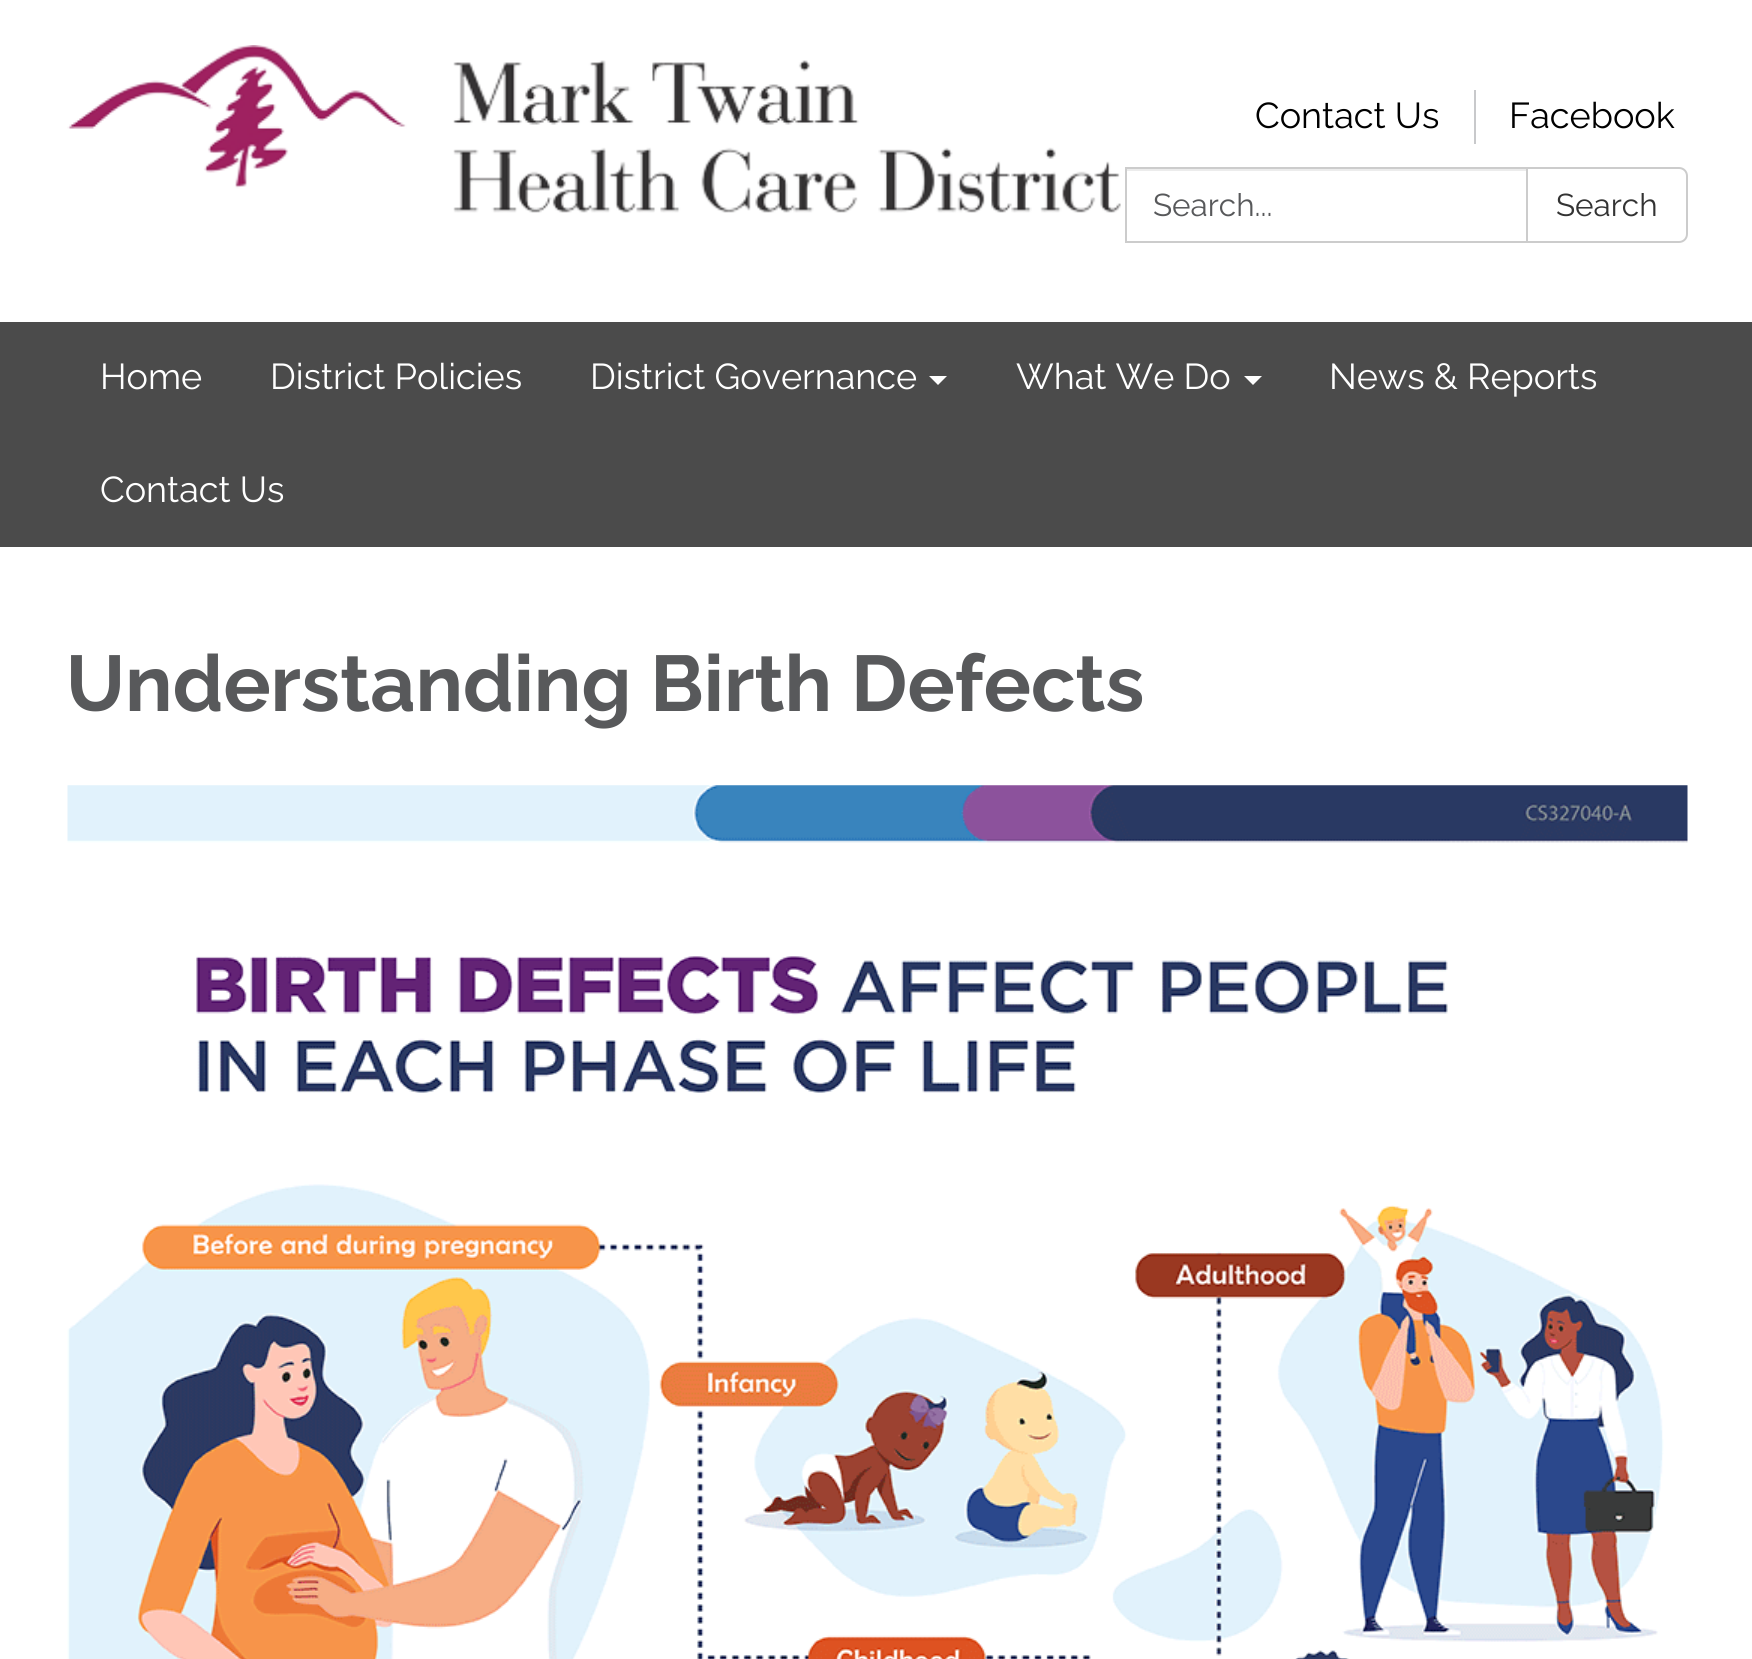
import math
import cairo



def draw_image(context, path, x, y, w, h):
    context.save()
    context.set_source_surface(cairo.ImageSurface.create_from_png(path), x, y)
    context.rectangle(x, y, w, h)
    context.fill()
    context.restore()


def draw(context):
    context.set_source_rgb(75 / 255, 75 / 255, 75 / 255)
    context.paint()
    context.set_source_rgb(1, 1, 1)
    context.rectangle(0, 0, 1752, 322)
    context.fill()
    draw_image(context, "images/1.png", 67, 45, 1054, 168)
    context.set_source_rgb(200 / 255, 201 / 255, 203 / 255)
    context.rectangle(1474, 90, 2, 54)
    context.fill()
    context.set_source_rgb(236 / 255, 236 / 255, 236 / 255)
    context.rectangle(1127, 169, 399, 2)
    context.fill()
    context.rectangle(1126, 168, 401, 74)
    context.set_source_rgb(204 / 255, 204 / 255, 204 / 255)
    context.stroke()
    context.set_source_rgb(1, 1, 1)
    context.new_path()
    context.move_to(1527, 168)
    context.line_to(1679, 168)
    context.curve_to(1683.5, 168, 1687, 171.5, 1687, 176)
    context.line_to(1687, 234)
    context.curve_to(1687, 238.5, 1683.5, 242, 1679, 242)
    context.line_to(1527, 242)
    context.close_path()
    context.fill_preserve()
    context.set_source_rgb(204 / 255, 204 / 255, 204 / 255)
    context.stroke()
    context.set_source_rgb(1, 1, 1)
    context.new_path()
    context.move_to(929, 376)
    context.line_to(947, 376)
    context.line_to(938, 385)
    context.close_path()
    context.fill()
    context.new_path()
    context.move_to(1244, 376)
    context.line_to(1262, 376)
    context.line_to(1253, 385)
    context.close_path()
    context.fill()
    context.rectangle(0, 547, 1752, 1112)
    context.fill()
    draw_image(context, "images/2.png", 67, 785, 1621, 874)
    context.select_font_face("Raleway")
    context.set_font_size(36)
    context.set_source_rgb(0, 0, 0)
    context.move_to(1255, 128)
    context.show_text("Contact Us")
    context.move_to(1509, 128)
    context.show_text("Facebook")
    context.set_font_size(31.5)
    context.set_source_rgb(88 / 255, 89 / 255, 91 / 255)
    context.move_to(1153, 216)
    context.show_text("Search...")
    context.set_source_rgb(51 / 255, 51 / 255, 51 / 255)
    context.move_to(1556, 216)
    context.show_text("Search")
    context.set_font_size(36)
    context.set_source_rgb(1, 1, 1)
    context.move_to(100, 389)
    context.show_text("Home")
    context.move_to(270, 389)
    context.show_text("District Policies")
    context.move_to(590, 389)
    context.show_text("District Governance")
    context.move_to(1016, 389)
    context.show_text("What We Do")
    context.move_to(1329, 389)
    context.show_text("News & Reports")
    context.move_to(100, 502)
    context.show_text("Contact Us")
    context.select_font_face("Raleway", cairo.FontSlant.NORMAL, cairo.FontWeight.BOLD)
    context.set_font_size(78.75)
    context.set_source_rgb(88 / 255, 89 / 255, 91 / 255)
    context.move_to(66, 711)
    context.show_text("Understanding Birth Defects")


surface = cairo.ImageSurface(cairo.Format.RGB24, 1752, 1659)
context = cairo.Context(surface)
options = cairo.FontOptions()
options.set_hint_metrics(cairo.HintMetrics.OFF)
options.set_hint_style(cairo.HintStyle.NONE)
context.set_font_options(options)
context.set_miter_limit(4)
draw(context)
surface.write_to_png("out.png")
